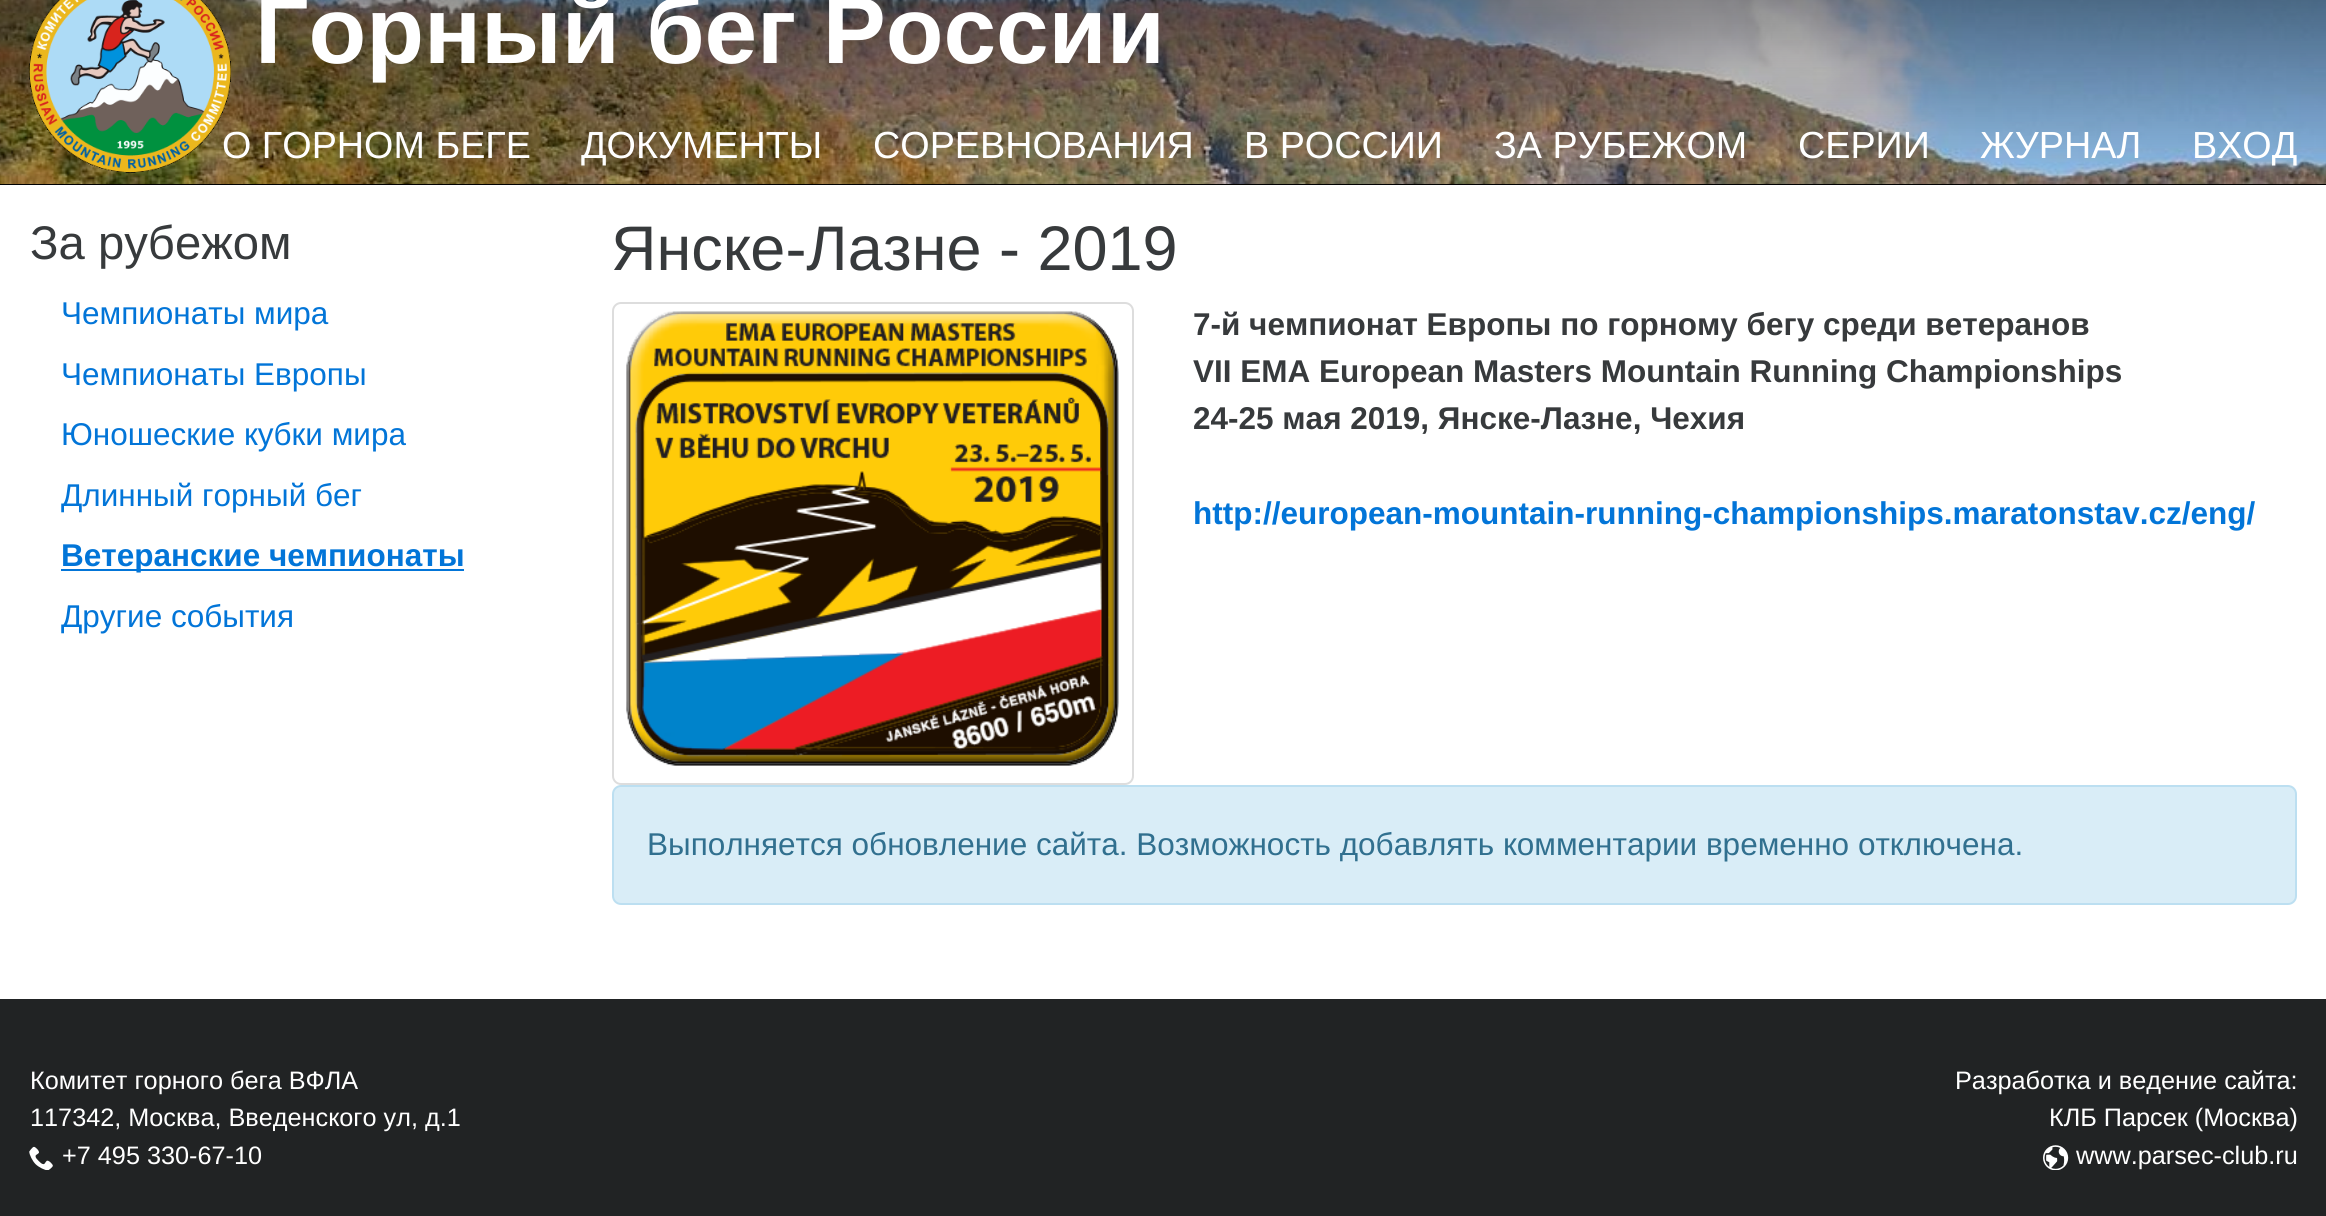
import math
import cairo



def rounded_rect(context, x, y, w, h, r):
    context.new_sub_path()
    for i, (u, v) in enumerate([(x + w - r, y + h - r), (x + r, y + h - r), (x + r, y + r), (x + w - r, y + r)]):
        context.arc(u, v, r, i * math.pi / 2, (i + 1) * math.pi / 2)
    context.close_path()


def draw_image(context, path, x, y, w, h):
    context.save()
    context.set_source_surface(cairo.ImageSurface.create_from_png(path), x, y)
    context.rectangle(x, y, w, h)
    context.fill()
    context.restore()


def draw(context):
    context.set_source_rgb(1, 1, 1)
    context.paint()
    context.set_source_rgb(0, 0, 0)
    context.rectangle(0, 184, 2326, 1)
    context.fill()
    draw_image(context, "images/1.png", 0, 0, 2326, 184)
    draw_image(context, "images/2.png", 29, 0, 202, 173)
    context.set_source_rgb(2 / 255, 117 / 255, 216 / 255)
    context.rectangle(61, 569, 403, 2)
    context.fill()
    rounded_rect(context, 613, 303, 520, 481, 8)
    context.set_source_rgb(221 / 255, 221 / 255, 221 / 255)
    context.stroke()
    draw_image(context, "images/3.png", 626, 311, 493, 455)
    context.set_source_rgb(217 / 255, 237 / 255, 247 / 255)
    rounded_rect(context, 613, 786, 1683, 118, 8)
    context.fill_preserve()
    context.set_source_rgb(188 / 255, 223 / 255, 241 / 255)
    context.stroke()
    context.set_source_rgb(33 / 255, 35 / 255, 36 / 255)
    context.rectangle(0, 999, 2326, 217)
    context.fill()
    draw_image(context, "images/4.png", 29, 1146, 24, 24)
    draw_image(context, "images/5.png", 2043, 1145, 26, 25)
    context.select_font_face("Liberation Sans", cairo.FontSlant.NORMAL, cairo.FontWeight.BOLD)
    context.set_font_size(94.5)
    context.set_source_rgb(1, 1, 1)
    context.move_to(255, 63)
    context.show_text("Горный бег России")
    context.select_font_face("Liberation Sans")
    context.set_font_size(37.75)
    context.move_to(222, 158)
    context.show_text("О ГОРНОМ БЕГЕ")
    context.move_to(581, 158)
    context.show_text("ДОКУМЕНТЫ")
    context.move_to(873, 158)
    context.show_text("СОРЕВНОВАНИЯ")
    context.move_to(1244, 158)
    context.show_text("В РОССИИ")
    context.move_to(1494, 158)
    context.show_text("ЗА РУБЕЖОМ")
    context.move_to(1798, 158)
    context.show_text("СЕРИИ")
    context.move_to(1980, 158)
    context.show_text("ЖУРНАЛ")
    context.move_to(2192, 158)
    context.show_text("ВХОД")
    context.set_font_size(47.25)
    context.set_source_rgb(55 / 255, 58 / 255, 60 / 255)
    context.move_to(30, 259)
    context.show_text("За рубежом")
    context.set_font_size(31.5)
    context.set_source_rgb(2 / 255, 117 / 255, 216 / 255)
    context.move_to(61, 324)
    context.show_text("Чемпионаты мира")
    context.move_to(61, 385)
    context.show_text("Чемпионаты Европы")
    context.move_to(61, 445)
    context.show_text("Юношеские кубки мира")
    context.move_to(61, 506)
    context.show_text("Длинный горный бег")
    context.select_font_face("Liberation Sans", cairo.FontSlant.NORMAL, cairo.FontWeight.BOLD)
    context.move_to(61, 566)
    context.show_text("Ветеранские чемпионаты")
    context.select_font_face("Liberation Sans")
    context.move_to(61, 627)
    context.show_text("Другие события")
    context.set_font_size(63)
    context.set_source_rgb(55 / 255, 58 / 255, 60 / 255)
    context.move_to(611, 270)
    context.show_text("Янске-Лазне - 2019")
    context.select_font_face("Liberation Sans", cairo.FontSlant.NORMAL, cairo.FontWeight.BOLD)
    context.set_font_size(31.5)
    context.move_to(1193, 335)
    context.show_text("7-й чемпионат Европы по горному бегу среди ветеранов")
    context.move_to(1193, 382)
    context.show_text("VII EMA European Masters Mountain Running Championships")
    context.move_to(1193, 429)
    context.show_text("24-25 мая 2019, Янске-Лазне, Чехия")
    context.set_source_rgb(2 / 255, 117 / 255, 216 / 255)
    context.move_to(1193, 524)
    context.show_text("http://european-mountain-running-championships.maratonstav.cz/eng/")
    context.select_font_face("Liberation Sans")
    context.set_source_rgb(49 / 255, 112 / 255, 143 / 255)
    context.move_to(647, 855)
    context.show_text("Выполняется обновление сайта. Возможность добавлять комментарии временно отключена.")
    context.set_font_size(25.25)
    context.set_source_rgb(1, 1, 1)
    context.move_to(30, 1089)
    context.show_text("Комитет горного бега ВФЛА")
    context.move_to(30, 1126)
    context.show_text("117342, Москва, Введенского ул, д.1")
    context.move_to(62, 1164)
    context.show_text("+7 495 330-67-10")
    context.move_to(1955, 1089)
    context.show_text("Разработка и ведение сайта:")
    context.move_to(2049, 1126)
    context.show_text("КЛБ Парсек (Москва)")
    context.move_to(2076, 1164)
    context.show_text("www.parsec-club.ru")


surface = cairo.ImageSurface(cairo.Format.RGB24, 2326, 1216)
context = cairo.Context(surface)
options = cairo.FontOptions()
options.set_hint_metrics(cairo.HintMetrics.OFF)
options.set_hint_style(cairo.HintStyle.NONE)
context.set_font_options(options)
context.set_miter_limit(4)
draw(context)
surface.write_to_png("out.png")
